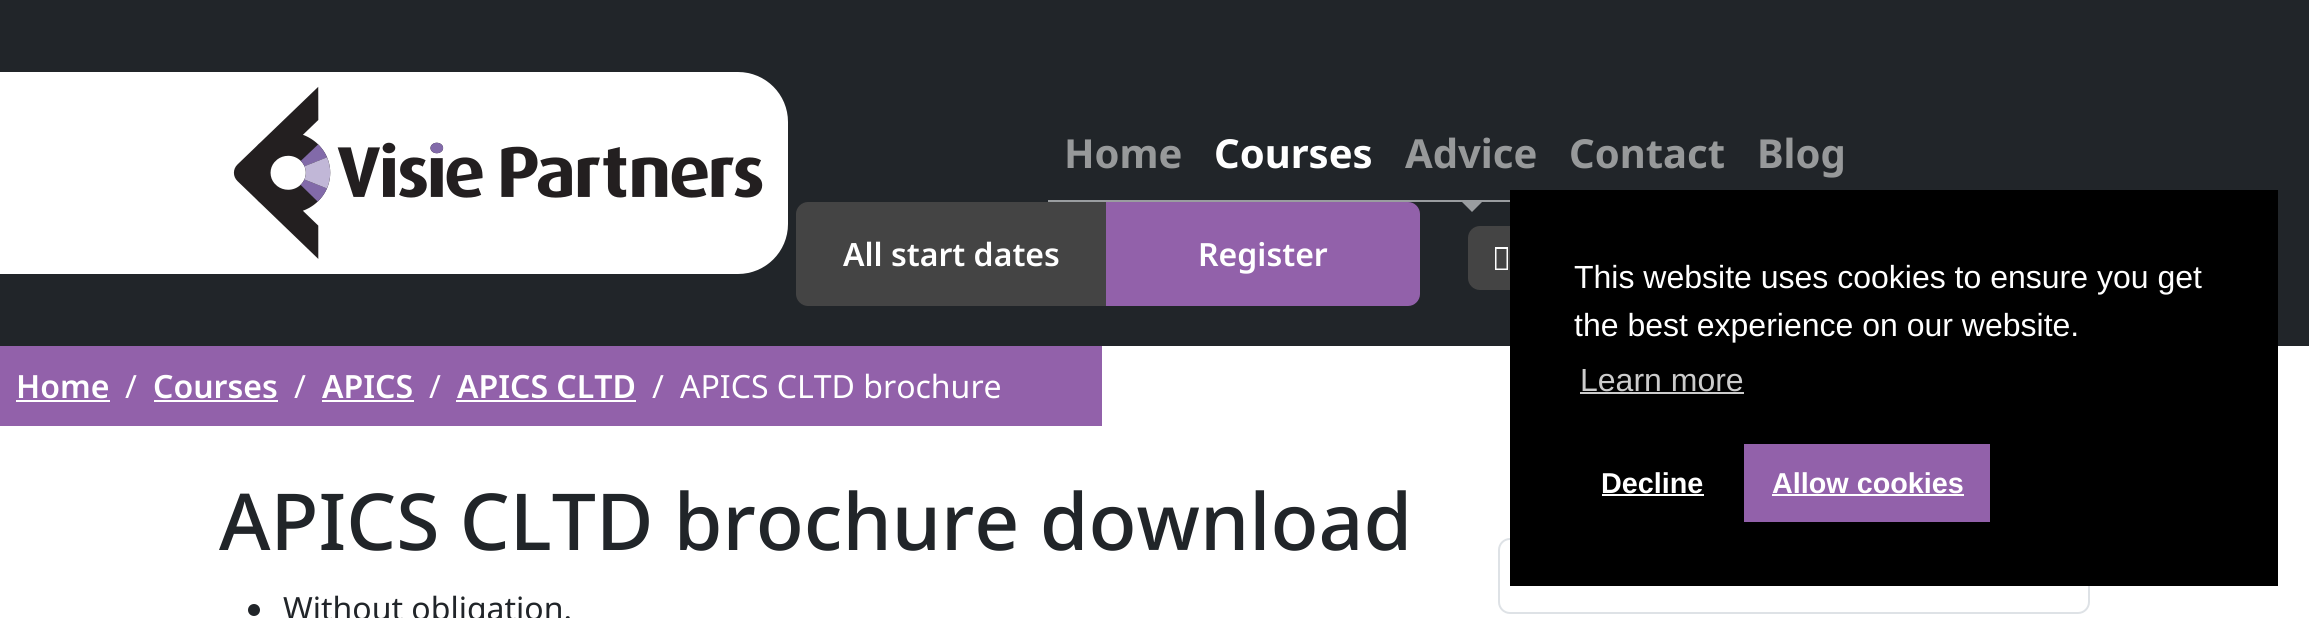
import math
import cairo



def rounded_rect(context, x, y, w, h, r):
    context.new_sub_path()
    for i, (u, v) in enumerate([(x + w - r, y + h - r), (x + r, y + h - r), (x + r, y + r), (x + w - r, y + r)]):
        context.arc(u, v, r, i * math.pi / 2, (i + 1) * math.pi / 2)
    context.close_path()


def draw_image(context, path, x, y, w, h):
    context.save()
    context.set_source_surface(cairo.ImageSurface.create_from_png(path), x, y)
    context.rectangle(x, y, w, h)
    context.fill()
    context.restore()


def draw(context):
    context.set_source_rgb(1, 1, 1)
    context.paint()
    context.set_source_rgb(33 / 255, 37 / 255, 41 / 255)
    context.rectangle(0, 0, 2309, 346)
    context.fill()
    context.set_source_rgb(1, 1, 1)
    rounded_rect(context, -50, 72, 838, 202, 50)
    context.fill()
    draw_image(context, "images/1.png", 233, 86, 530, 173)
    context.set_source_rgb(154 / 255, 157 / 255, 160 / 255)
    context.rectangle(1048, 200, 462, 2)
    context.fill()
    context.new_path()
    context.move_to(1282, 200)
    context.line_to(1306, 200)
    context.line_to(1294, 212)
    context.close_path()
    context.fill()
    context.new_path()
    context.move_to(1460, 200)
    context.line_to(1484, 200)
    context.line_to(1472, 212)
    context.close_path()
    context.fill()
    context.set_source_rgb(68 / 255, 68 / 255, 68 / 255)
    context.new_path()
    context.move_to(808, 202)
    context.line_to(1108, 202)
    context.line_to(1108, 306)
    context.line_to(808, 306)
    context.curve_to(801.5, 306, 796, 300.5, 796, 294)
    context.line_to(796, 214)
    context.curve_to(796, 207.5, 801.5, 202, 808, 202)
    context.close_path()
    context.fill()
    context.set_source_rgb(146 / 255, 97 / 255, 170 / 255)
    context.new_path()
    context.move_to(1106, 202)
    context.line_to(1408, 202)
    context.curve_to(1414.5, 202, 1420, 207.5, 1420, 214)
    context.line_to(1420, 294)
    context.curve_to(1420, 300.5, 1414.5, 306, 1408, 306)
    context.line_to(1106, 306)
    context.close_path()
    context.fill()
    context.set_source_rgb(68 / 255, 68 / 255, 68 / 255)
    rounded_rect(context, 1468, 226, 122, 64, 12)
    context.fill()
    context.set_source_rgb(1, 1, 1)
    context.new_path()
    context.move_to(1495, 270)
    context.line_to(1495, 247)
    context.line_to(1508, 247)
    context.line_to(1508, 270)
    context.close_path()
    context.move_to(1496.5, 268.5)
    context.line_to(1506.5, 268.5)
    context.line_to(1506.5, 249)
    context.line_to(1496.5, 249)
    context.close_path()
    context.fill()
    context.set_source_rgb(146 / 255, 97 / 255, 170 / 255)
    context.rectangle(0, 346, 1102, 80)
    context.fill()
    context.set_source_rgb(1, 1, 1)
    context.rectangle(16, 400, 94, 2)
    context.fill()
    context.rectangle(154, 400, 124, 2)
    context.fill()
    context.rectangle(322, 400, 92, 2)
    context.fill()
    context.rectangle(456, 400, 180, 2)
    context.fill()
    context.set_source_rgb(33 / 255, 37 / 255, 41 / 255)
    context.arc(254, 610, 6, 0, 2 * math.pi)
    context.fill()
    rounded_rect(context, 1499, 539, 590, 74, 11)
    context.set_source_rgb(222 / 255, 226 / 255, 230 / 255)
    context.stroke()
    context.set_source_rgb(0, 0, 0)
    context.rectangle(1510, 190, 768, 396)
    context.fill()
    context.set_source_rgb(204 / 255, 204 / 255, 204 / 255)
    context.rectangle(1580, 392, 164, 2)
    context.fill()
    context.set_source_rgb(1, 1, 1)
    context.rectangle(1602, 494, 102, 2)
    context.fill()
    context.set_source_rgb(146 / 255, 97 / 255, 170 / 255)
    context.rectangle(1744, 444, 246, 78)
    context.fill()
    context.set_source_rgb(1, 1, 1)
    context.rectangle(1772, 494, 192, 2)
    context.fill()
    context.select_font_face("Noto Sans", cairo.FontSlant.NORMAL, cairo.FontWeight.BOLD)
    context.set_font_size(40)
    context.set_source_rgb(151 / 255, 153 / 255, 154 / 255)
    context.move_to(1064, 168)
    context.show_text("Home")
    context.set_source_rgb(1, 1, 1)
    context.move_to(1214, 168)
    context.show_text("Courses")
    context.set_source_rgb(151 / 255, 153 / 255, 154 / 255)
    context.move_to(1405, 168)
    context.show_text("Advice")
    context.move_to(1569, 168)
    context.show_text("Contact")
    context.move_to(1757, 168)
    context.show_text("Blog")
    context.select_font_face("Noto Sans SemiBold")
    context.set_font_size(32)
    context.set_source_rgb(1, 1, 1)
    context.move_to(843, 266)
    context.show_text("All start dates")
    context.move_to(1198, 266)
    context.show_text("Register")
    context.move_to(16, 398)
    context.show_text("Home")
    context.select_font_face("Noto Sans")
    context.move_to(125, 398)
    context.show_text("/")
    context.select_font_face("Noto Sans SemiBold")
    context.move_to(153, 398)
    context.show_text("Courses")
    context.select_font_face("Noto Sans")
    context.move_to(294, 398)
    context.show_text("/")
    context.select_font_face("Noto Sans SemiBold")
    context.move_to(322, 398)
    context.show_text("APICS")
    context.select_font_face("Noto Sans")
    context.move_to(429, 398)
    context.show_text("/")
    context.select_font_face("Noto Sans SemiBold")
    context.move_to(457, 398)
    context.show_text("APICS CLTD")
    context.select_font_face("Noto Sans")
    context.move_to(652, 398)
    context.show_text("/")
    context.move_to(680, 398)
    context.show_text("APICS CLTD brochure")
    context.select_font_face("Noto Sans Medium")
    context.set_font_size(78.6)
    context.set_source_rgb(33 / 255, 37 / 255, 41 / 255)
    context.move_to(219, 550)
    context.show_text("APICS CLTD brochure download")
    context.select_font_face("Noto Sans")
    context.set_font_size(32)
    context.move_to(283, 620)
    context.show_text("Without obligation.")
    context.select_font_face("Liberation Sans")
    context.set_source_rgb(1, 1, 1)
    context.move_to(1574, 288)
    context.show_text("This website uses cookies to ensure you get")
    context.move_to(1574, 336)
    context.show_text("the best experience on our website.")
    context.set_source_rgb(204 / 255, 204 / 255, 204 / 255)
    context.move_to(1580, 391)
    context.show_text("Learn more")
    context.select_font_face("Liberation Sans", cairo.FontSlant.NORMAL, cairo.FontWeight.BOLD)
    context.set_font_size(28.75)
    context.set_source_rgb(1, 1, 1)
    context.move_to(1601, 493)
    context.show_text("Decline")
    context.move_to(1772, 493)
    context.show_text("Allow cookies")


surface = cairo.ImageSurface(cairo.Format.RGB24, 2309, 618)
context = cairo.Context(surface)
options = cairo.FontOptions()
options.set_hint_metrics(cairo.HintMetrics.OFF)
options.set_hint_style(cairo.HintStyle.NONE)
context.set_font_options(options)
context.set_miter_limit(4)
draw(context)
surface.write_to_png("out.png")
